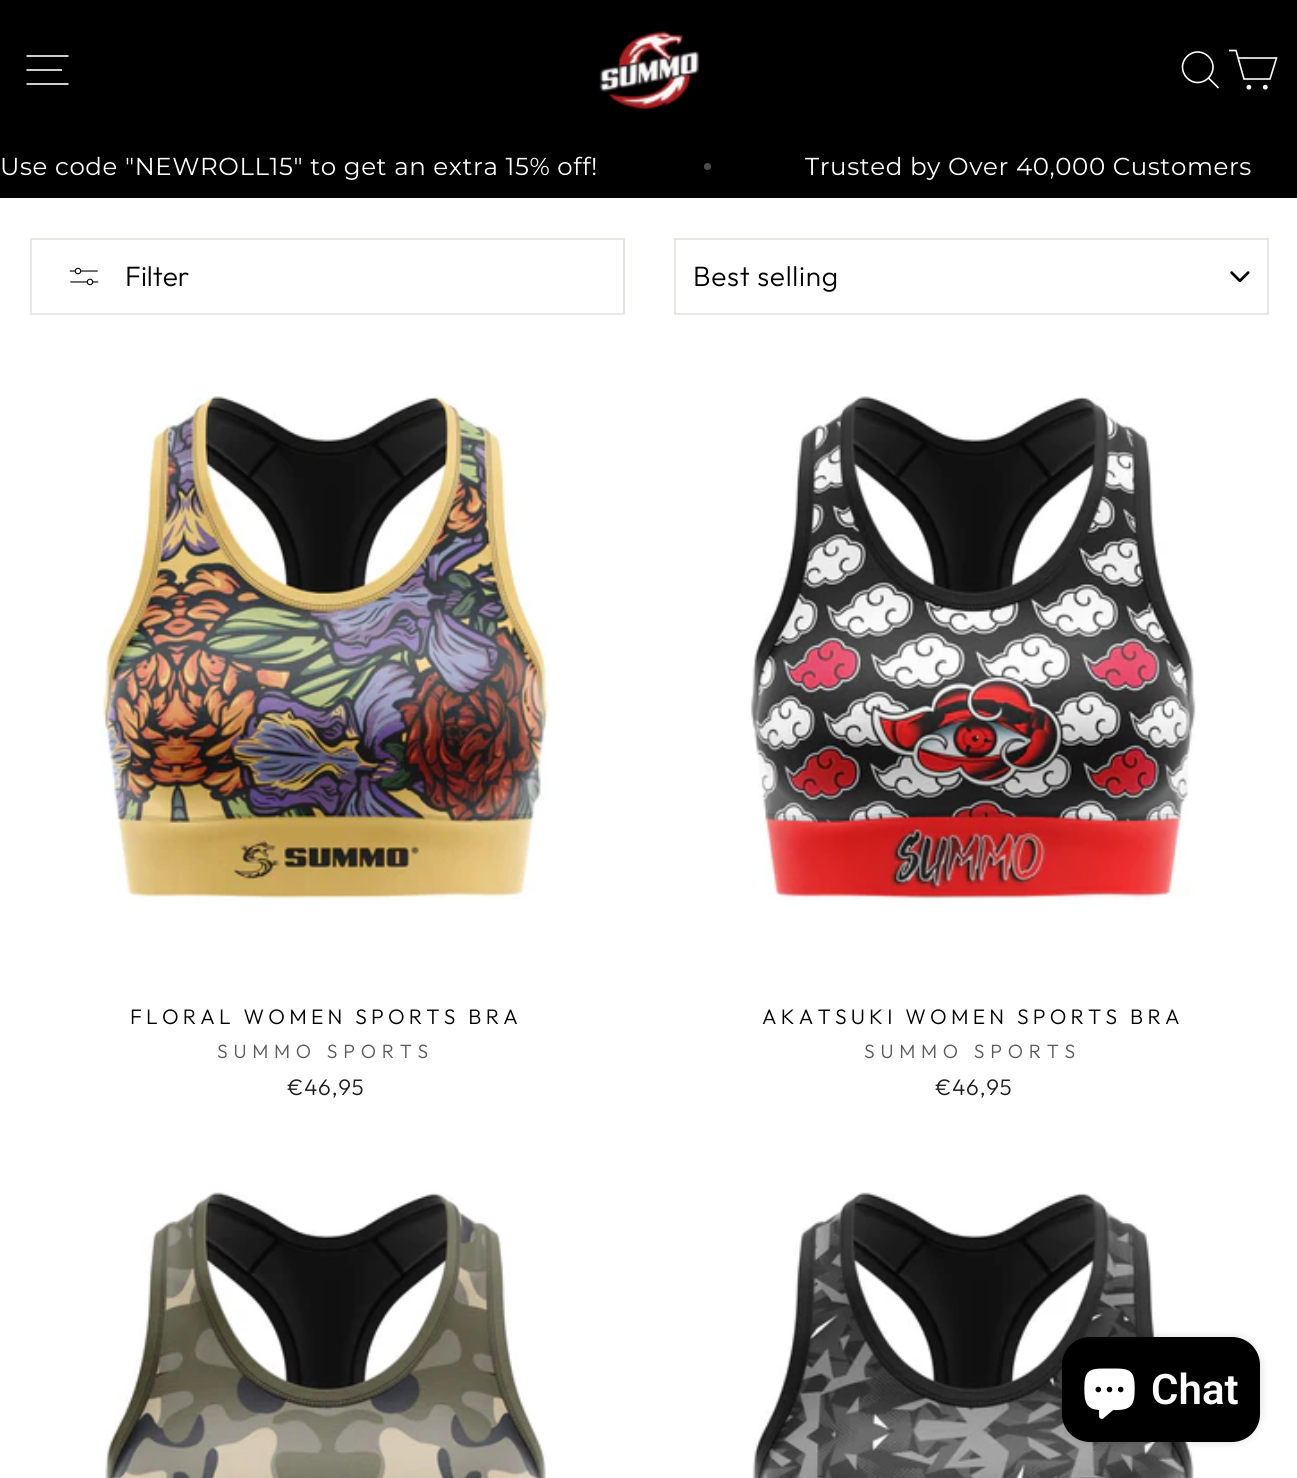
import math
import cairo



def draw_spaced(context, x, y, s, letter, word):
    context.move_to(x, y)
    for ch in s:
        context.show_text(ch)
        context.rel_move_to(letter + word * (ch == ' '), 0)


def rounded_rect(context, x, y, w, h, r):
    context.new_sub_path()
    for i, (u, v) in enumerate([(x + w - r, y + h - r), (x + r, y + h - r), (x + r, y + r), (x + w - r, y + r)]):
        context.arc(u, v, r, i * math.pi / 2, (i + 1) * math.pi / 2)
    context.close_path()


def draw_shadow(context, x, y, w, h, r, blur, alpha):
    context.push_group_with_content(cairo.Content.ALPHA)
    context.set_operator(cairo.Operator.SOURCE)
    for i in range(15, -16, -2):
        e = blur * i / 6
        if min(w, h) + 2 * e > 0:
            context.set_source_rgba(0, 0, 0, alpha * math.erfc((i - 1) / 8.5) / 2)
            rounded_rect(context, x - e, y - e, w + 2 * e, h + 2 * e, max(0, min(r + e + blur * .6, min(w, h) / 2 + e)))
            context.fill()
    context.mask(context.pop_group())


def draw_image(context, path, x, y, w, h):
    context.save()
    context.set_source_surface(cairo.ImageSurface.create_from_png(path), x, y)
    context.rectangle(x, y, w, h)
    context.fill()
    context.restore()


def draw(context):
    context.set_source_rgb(1, 1, 1)
    context.paint()
    context.set_source_rgb(0, 0, 0)
    context.rectangle(0, 0, 1297, 198)
    context.fill()
    context.new_path()
    context.move_to(26.5, 56)
    context.line_to(68.5, 56)
    context.move_to(26.5, 70)
    context.line_to(62, 70)
    context.move_to(26.5, 84)
    context.line_to(68.5, 84)
    context.set_source_rgb(1, 1, 1)
    context.set_line_width(1.6)
    context.stroke()
    draw_image(context, "images/1.png", 599, 31, 101, 78)
    context.new_path()
    context.move_to(1213, 67)
    context.curve_to(1213, 75.5, 1206, 82.5, 1197.5, 82.5)
    context.curve_to(1189.5, 82.5, 1182.5, 75.5, 1182.5, 67)
    context.curve_to(1182.5, 59, 1189.5, 52, 1197.5, 52)
    context.curve_to(1206, 52, 1213, 59, 1213, 67)
    context.close_path()
    context.move_to(1218.5, 88)
    context.line_to(1208.5, 78)
    context.stroke()
    context.new_path()
    context.move_to(1238, 58)
    context.line_to(1276.5, 58)
    context.line_to(1270, 79)
    context.line_to(1244, 79)
    context.line_to(1236, 50.5)
    context.line_to(1229, 50.5)
    context.stroke()
    context.arc(1248.9, 87.2, 1.6, 0, 2 * math.pi)
    context.fill_preserve()
    context.stroke()
    context.arc(1265.3, 87.2, 1.6, 0, 2 * math.pi)
    context.fill_preserve()
    context.stroke()
    context.set_source_rgb(77 / 255, 77 / 255, 77 / 255)
    context.arc(707.5, 166.5, 3.5, 0, 2 * math.pi)
    context.fill()
    context.rectangle(31, 239, 593, 75)
    context.set_source_rgb(232 / 255, 232 / 255, 225 / 255)
    context.set_line_width(2)
    context.stroke()
    draw_image(context, "images/2.png", 69, 267, 30, 19)
    draw_image(context, "images/3.png", 1230, 271, 20, 11)
    context.rectangle(675, 239, 593, 75)
    context.stroke()
    draw_image(context, "images/4.png", 102, 396, 447, 503)
    draw_image(context, "images/5.png", 750, 396, 446, 504)
    draw_image(context, "images/6.png", 104, 1190, 443, 288)
    draw_image(context, "images/7.png", 752, 1192, 442, 286)
    context.set_source_rgb(0, 0, 0)
    draw_shadow(context, 1062, 1337, 198, 105, 28, 4.5, 0.15)
    context.set_source_rgb(0, 0, 0)
    rounded_rect(context, 1062, 1337, 198, 105, 28)
    context.fill()
    draw_image(context, "images/8.png", 1084, 1368, 51, 51)
    context.select_font_face("Montserrat")
    context.set_font_size(24.5)
    context.set_source_rgb(1, 1, 1)
    draw_spaced(context, 0, 175, "Use code \"NEWROLL15\" to get an extra 15% off!", 0.6, 0)
    draw_spaced(context, 805, 175, "Trusted by Over 40,000 Customers", 0.6, 0)
    context.select_font_face("Outfit Light")
    context.set_font_size(28)
    context.set_source_rgb(0, 0, 0)
    context.move_to(125, 286)
    context.show_text("Filter")
    draw_spaced(context, 693, 286, "Best selling", 0.75, 0)
    context.set_font_size(21)
    draw_spaced(context, 130, 1024, "FLORAL WOMEN SPORTS BRA", 4.2, 0)
    context.set_font_size(19.25)
    context.set_source_rgb(89 / 255, 89 / 255, 89 / 255)
    draw_spaced(context, 217, 1058, "SUMMO SPORTS", 5.75, 0)
    context.set_font_size(22.5)
    context.set_source_rgb(28 / 255, 29 / 255, 29 / 255)
    draw_spaced(context, 287, 1095, "€46,95", 0.6, 0)
    context.set_font_size(21)
    context.set_source_rgb(0, 0, 0)
    draw_spaced(context, 762, 1024, "AKATSUKI WOMEN SPORTS BRA", 4.2, 0)
    context.set_font_size(19.25)
    context.set_source_rgb(89 / 255, 89 / 255, 89 / 255)
    draw_spaced(context, 864, 1058, "SUMMO SPORTS", 5.75, 0)
    context.set_font_size(22.5)
    context.set_source_rgb(28 / 255, 29 / 255, 29 / 255)
    draw_spaced(context, 935, 1095, "€46,95", 0.6, 0)
    context.select_font_face("Roboto SemiBold")
    context.set_font_size(42)
    context.set_source_rgb(1, 1, 1)
    context.move_to(1151, 1404)
    context.show_text("Chat")


surface = cairo.ImageSurface(cairo.Format.RGB24, 1297, 1478)
context = cairo.Context(surface)
options = cairo.FontOptions()
options.set_hint_metrics(cairo.HintMetrics.OFF)
options.set_hint_style(cairo.HintStyle.NONE)
context.set_font_options(options)
context.set_miter_limit(4)
draw(context)
surface.write_to_png("out.png")
